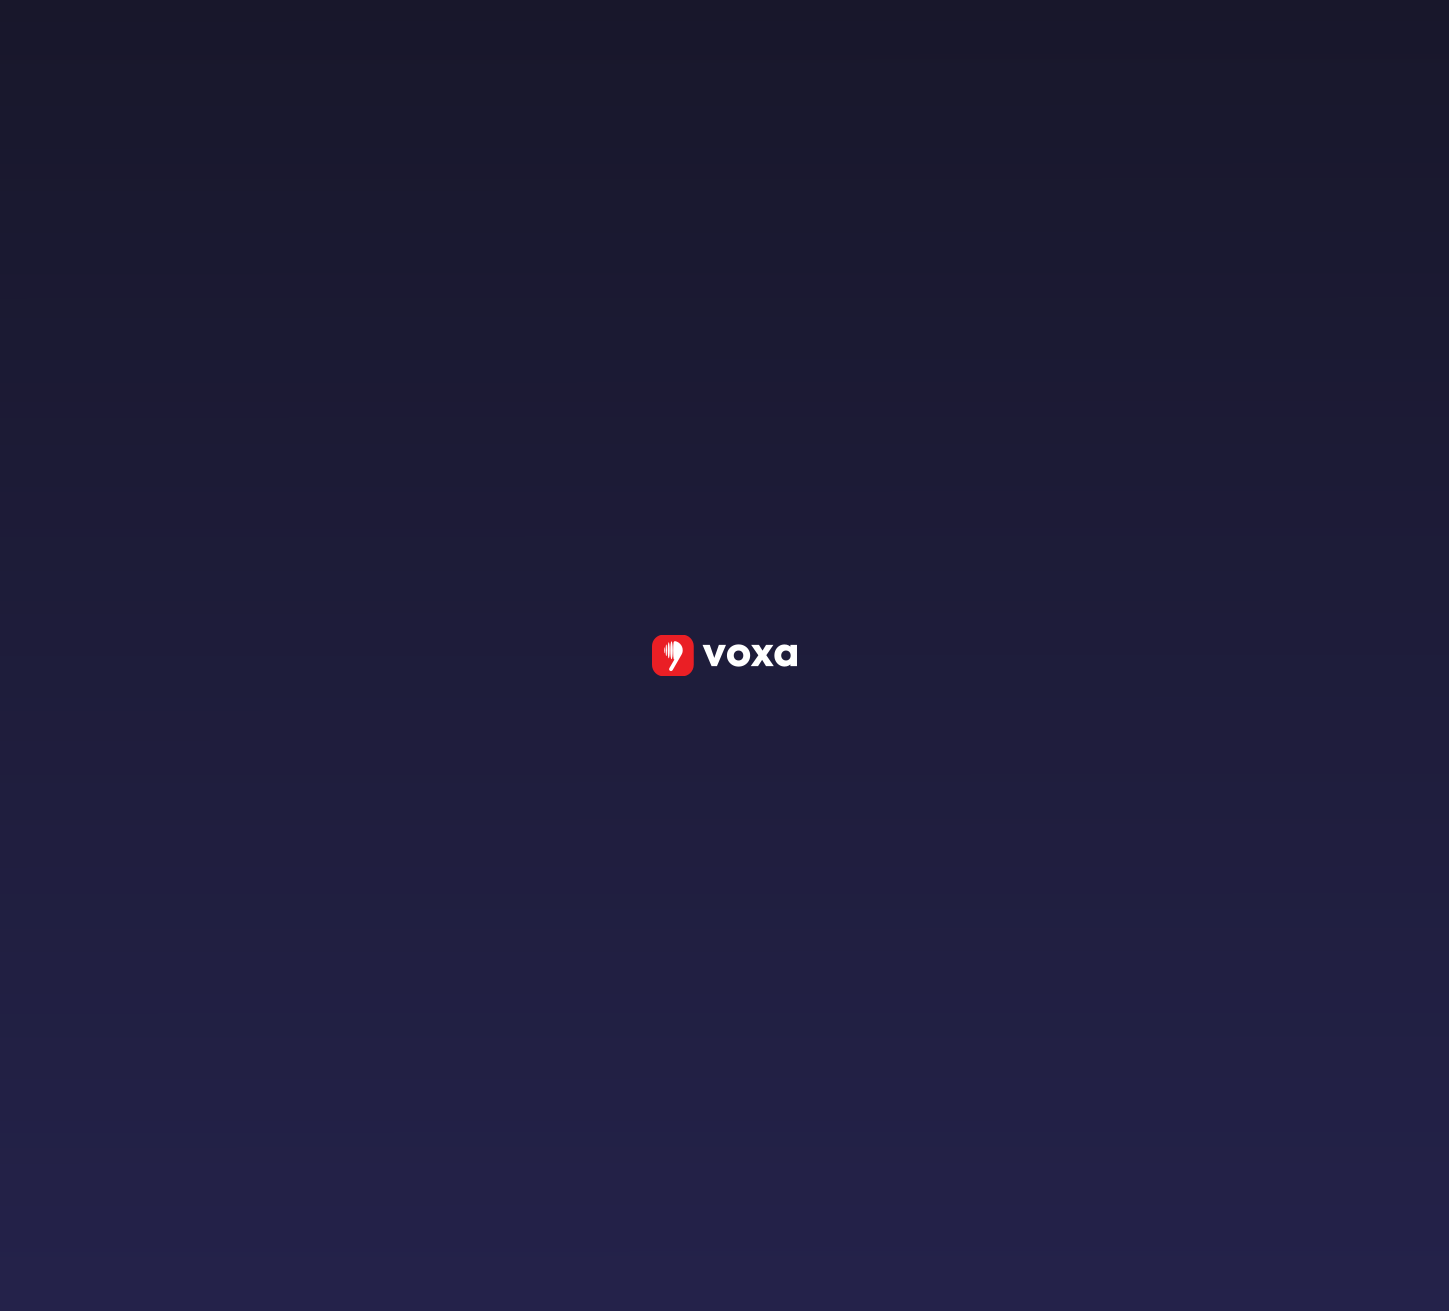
import math
import cairo



def draw_image(context, path, x, y, w, h):
    context.save()
    context.set_source_surface(cairo.ImageSurface.create_from_png(path), x, y)
    context.rectangle(x, y, w, h)
    context.fill()
    context.restore()


def draw(context):
    context.set_source_rgb(1, 1, 1)
    context.paint()
    gradient = cairo.LinearGradient(724, 0, 725, 1311)
    gradient.add_color_stop_rgba(0, 24 / 255, 23 / 255, 43 / 255, 1)
    gradient.add_color_stop_rgba(1, 36 / 255, 34 / 255, 74 / 255, 1)
    context.set_source(gradient)
    context.rectangle(0, 0, 1449, 1311)
    context.fill()
    draw_image(context, "images/1.png", 652, 635, 145, 41)


surface = cairo.ImageSurface(cairo.Format.RGB24, 1449, 1311)
context = cairo.Context(surface)
options = cairo.FontOptions()
options.set_hint_metrics(cairo.HintMetrics.OFF)
options.set_hint_style(cairo.HintStyle.NONE)
context.set_font_options(options)
context.set_miter_limit(4)
draw(context)
surface.write_to_png("out.png")
